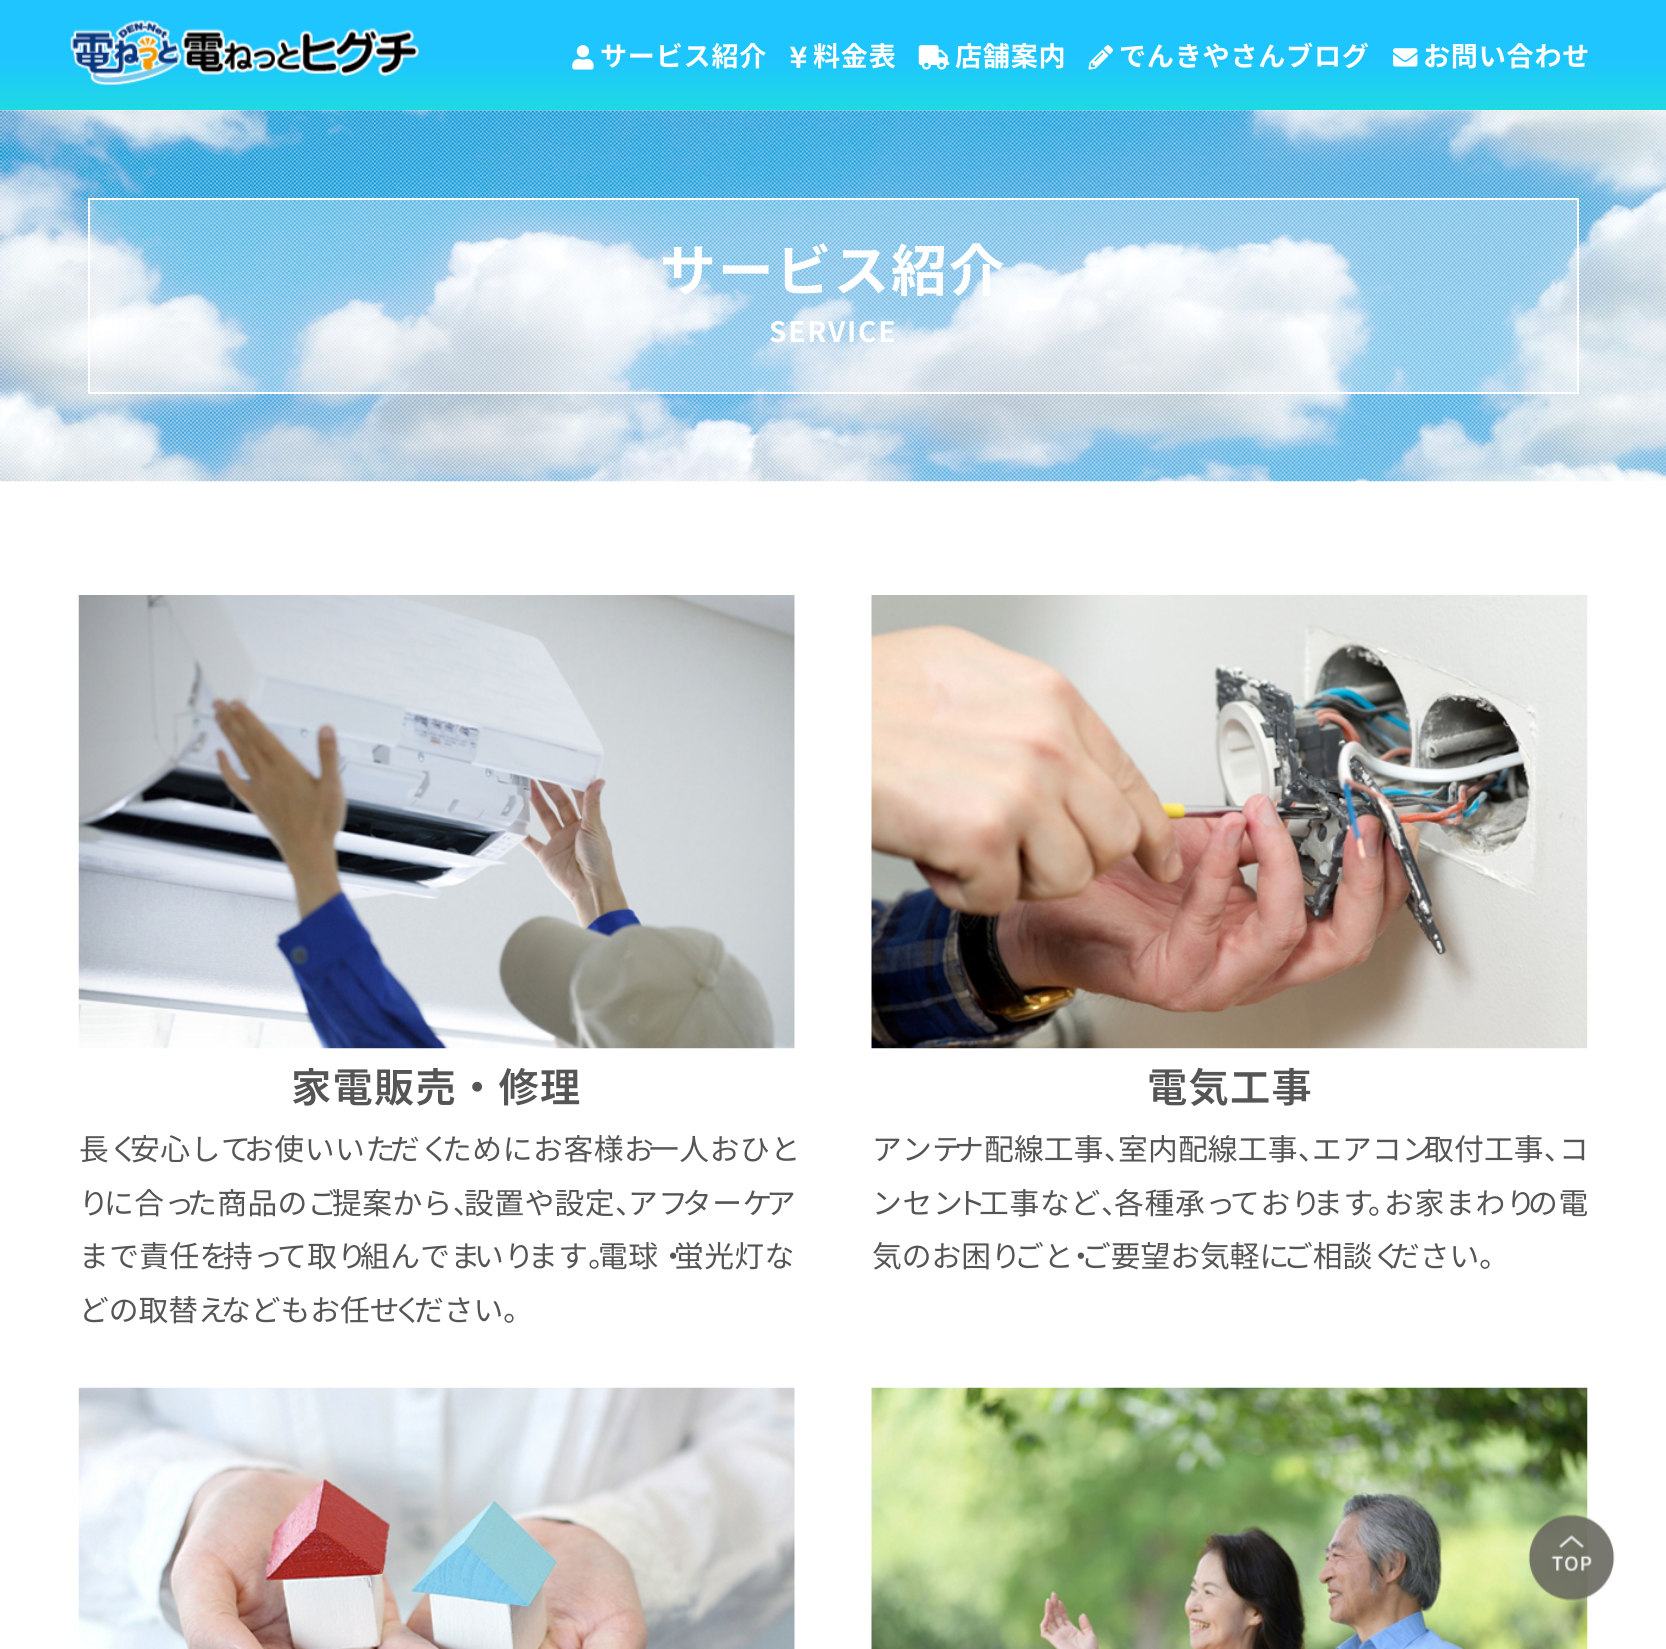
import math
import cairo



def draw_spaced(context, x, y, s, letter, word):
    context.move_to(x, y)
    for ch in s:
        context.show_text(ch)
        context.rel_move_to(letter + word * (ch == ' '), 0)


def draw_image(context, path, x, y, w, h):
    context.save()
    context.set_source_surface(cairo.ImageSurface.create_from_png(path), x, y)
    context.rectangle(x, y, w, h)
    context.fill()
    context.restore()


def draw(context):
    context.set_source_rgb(1, 1, 1)
    context.paint()
    gradient = cairo.LinearGradient(833, 0, 833, 110)
    gradient.add_color_stop_rgba(0.53, 30 / 255, 197 / 255, 1, 1)
    gradient.add_color_stop_rgba(1, 30 / 255, 217 / 255, 225 / 255, 1)
    context.set_source(gradient)
    context.rectangle(0, 0, 1666, 110)
    context.fill()
    draw_image(context, "images/1.png", 70, 19, 349, 66)
    draw_image(context, "images/2.png", 572, 45, 22, 25)
    draw_image(context, "images/3.png", 790, 46, 17, 22)
    draw_image(context, "images/4.png", 918, 45, 32, 25)
    draw_image(context, "images/5.png", 1088, 45, 25, 25)
    draw_image(context, "images/6.png", 1393, 48, 25, 19)
    draw_image(context, "images/7.png", 0, 110, 1666, 372)
    context.set_source_rgba(1, 1, 1, 0.3)
    context.rectangle(89, 199, 1489, 194)
    context.fill_preserve()
    context.set_source_rgb(1, 1, 1)
    context.stroke()
    draw_image(context, "images/8.png", 78, 595, 717, 454)
    draw_image(context, "images/9.png", 871, 595, 717, 454)
    draw_image(context, "images/10.png", 78, 1387, 717, 262)
    draw_image(context, "images/11.png", 871, 1387, 717, 262)
    draw_image(context, "images/12.png", 1528, 1514, 87, 87)
    context.select_font_face("Noto Sans JP", cairo.FontSlant.NORMAL, cairo.FontWeight.BOLD)
    context.set_font_size(27.1)
    draw_spaced(context, 600, 66, "サービス紹介", 0.75, 0)
    draw_spaced(context, 813, 66, "料金表", 0.75, 0)
    draw_spaced(context, 955, 66, "店舗案内", 0.75, 0)
    draw_spaced(context, 1119, 66, "でんきやさんブログ", 0.75, 0)
    draw_spaced(context, 1423, 66, "お問い合わせ", 0.75, 0)
    context.set_font_size(56)
    draw_spaced(context, 660, 291, "サービス紹介", 1.75, 0)
    context.set_font_size(28)
    draw_spaced(context, 769, 342, "SERVICE", 1.75, 0)
    context.select_font_face("Noto Sans JP SemiBold")
    context.set_font_size(40.25)
    context.set_source_rgb(85 / 255, 85 / 255, 85 / 255)
    draw_spaced(context, 291, 1102, "家電販売・修理", 1.25, 0)
    context.select_font_face("Noto Sans JP")
    context.set_font_size(29.75)
    draw_spaced(context, 79, 1160, "長く", 0.6, 0)
    draw_spaced(context, 130, 1160, "安心して", 0.6, 0)
    draw_spaced(context, 244, 1160, "お使いいた", 0.6, 0)
    draw_spaced(context, 390, 1160, "だく", 0.6, 0)
    draw_spaced(context, 442, 1160, "ためにお客様お", 0.6, 0)
    draw_spaced(context, 649, 1160, "一人おひと", 0.6, 0)
    draw_spaced(context, 79, 1214, "り", 0.45, 0)
    draw_spaced(context, 104, 1214, "に合っ", 0.45, 0)
    draw_spaced(context, 187, 1214, "た商品のご", 0.45, 0)
    draw_spaced(context, 332, 1214, "提案から、", 0.45, 0)
    draw_spaced(context, 464, 1214, "設置や設定、", 0.45, 0)
    draw_spaced(context, 628, 1214, "アフ", 0.45, 0)
    draw_spaced(context, 682, 1214, "ターケ", 0.45, 0)
    draw_spaced(context, 766, 1214, "ア", 0.45, 0)
    draw_spaced(context, 79, 1267, "まで責任を", 0.4, 0)
    draw_spaced(context, 223, 1267, "持っ", 0.4, 0)
    draw_spaced(context, 277, 1267, "て取り", 0.4, 0)
    draw_spaced(context, 360, 1267, "組んでま", 0.4, 0)
    draw_spaced(context, 474, 1267, "いり", 0.4, 0)
    draw_spaced(context, 528, 1267, "ます。", 0.4, 0)
    draw_spaced(context, 598, 1267, "電球・", 0.4, 0)
    draw_spaced(context, 674, 1267, "蛍光灯な", 0.4, 0)
    context.move_to(79, 1321)
    context.show_text("どの取替え")
    context.move_to(221, 1321)
    context.show_text("などもお任せ")
    context.move_to(393, 1321)
    context.show_text("く")
    context.move_to(414, 1321)
    context.show_text("ださい。")
    context.select_font_face("Noto Sans JP SemiBold")
    context.set_font_size(40.25)
    draw_spaced(context, 1147, 1102, "電気工事", 1.25, 0)
    context.select_font_face("Noto Sans JP")
    context.set_font_size(29.75)
    draw_spaced(context, 872, 1160, "アンテ", 0.2, 0)
    draw_spaced(context, 954, 1160, "ナ配線工事、", 0.2, 0)
    draw_spaced(context, 1118, 1160, "室内配線工事、", 0.2, 0)
    draw_spaced(context, 1312, 1160, "エアコン", 0.2, 0)
    draw_spaced(context, 1424, 1160, "取付工事、", 0.2, 0)
    draw_spaced(context, 1559, 1160, "コ", 0.2, 0)
    draw_spaced(context, 872, 1214, "ンセン", 0.75, 0)
    draw_spaced(context, 956, 1214, "ト", 0.75, 0)
    draw_spaced(context, 979, 1214, "工事など、", 0.75, 0)
    draw_spaced(context, 1114, 1214, "各種承っ", 0.75, 0)
    draw_spaced(context, 1230, 1214, "ており", 0.75, 0)
    draw_spaced(context, 1313, 1214, "ます", 0.75, 0)
    draw_spaced(context, 1368, 1214, "。", 0.75, 0)
    draw_spaced(context, 1384, 1214, "お家まわり", 0.75, 0)
    draw_spaced(context, 1528, 1214, "の電", 0.75, 0)
    context.move_to(872, 1267)
    context.show_text("気のお困り")
    context.move_to(1014, 1267)
    context.show_text("ごと")
    context.move_to(1066, 1267)
    context.show_text("・")
    context.move_to(1081, 1267)
    context.show_text("ご要望お気軽に")
    context.move_to(1283, 1267)
    context.show_text("ご相談く")
    context.move_to(1390, 1267)
    context.show_text("ださい。")


surface = cairo.ImageSurface(cairo.Format.RGB24, 1666, 1649)
context = cairo.Context(surface)
options = cairo.FontOptions()
options.set_hint_metrics(cairo.HintMetrics.OFF)
options.set_hint_style(cairo.HintStyle.NONE)
context.set_font_options(options)
context.set_miter_limit(4)
draw(context)
surface.write_to_png("out.png")
